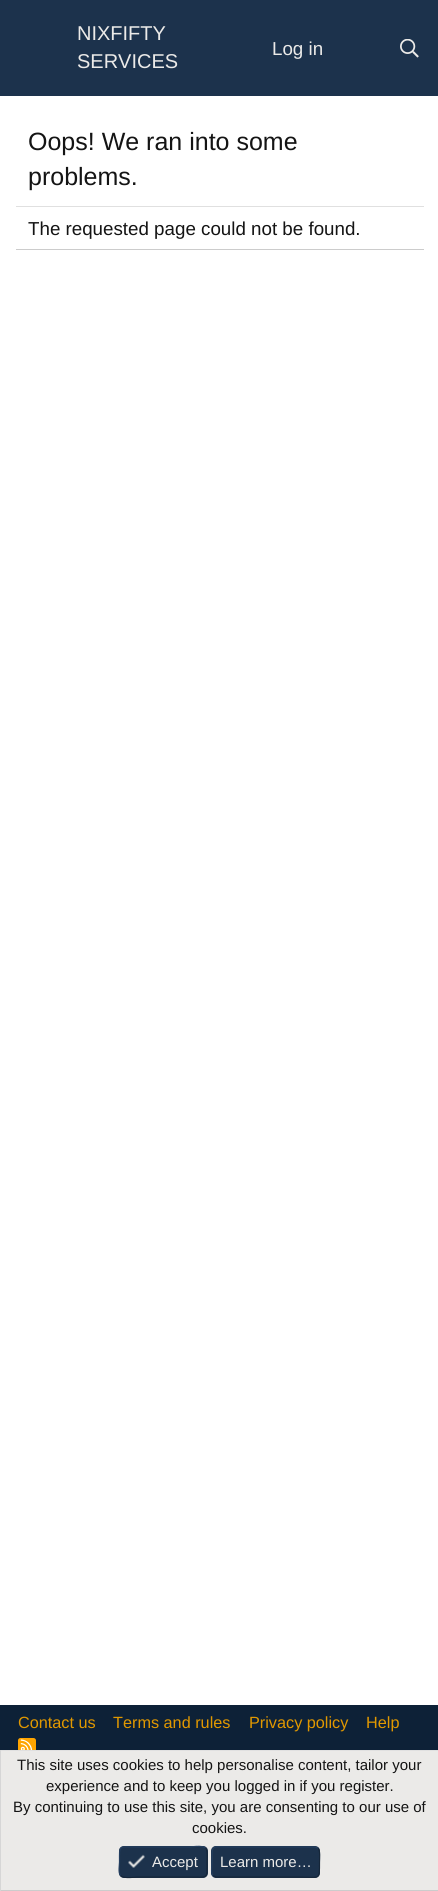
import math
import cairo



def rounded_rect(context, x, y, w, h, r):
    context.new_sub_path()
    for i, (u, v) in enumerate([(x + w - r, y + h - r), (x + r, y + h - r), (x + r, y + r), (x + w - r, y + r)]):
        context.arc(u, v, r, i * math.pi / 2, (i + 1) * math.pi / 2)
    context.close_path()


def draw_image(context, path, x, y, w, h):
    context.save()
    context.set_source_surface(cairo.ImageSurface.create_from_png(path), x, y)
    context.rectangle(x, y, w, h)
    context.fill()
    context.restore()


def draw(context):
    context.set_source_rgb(1, 1, 1)
    context.paint()
    context.set_source_rgb(28 / 255, 50 / 255, 76 / 255)
    context.rectangle(0, 0, 438, 96)
    context.fill()
    draw_image(context, "images/1.png", 400, 39, 19, 19)
    context.set_source_rgb(224 / 255, 224 / 255, 224 / 255)
    context.rectangle(16, 206, 408, 1)
    context.fill()
    context.set_source_rgb(204 / 255, 204 / 255, 204 / 255)
    context.rectangle(16, 249, 408, 1)
    context.fill()
    context.set_source_rgb(13 / 255, 33 / 255, 55 / 255)
    context.rectangle(0, 1705, 438, 45)
    context.fill()
    context.set_source_rgb(1, 165 / 255, 0)
    rounded_rect(context, 18, 1738, 18, 18, 2.5)
    context.fill()
    draw_image(context, "images/2.png", 20, 1739, 13, 11)
    context.set_source_rgb(235 / 255, 234 / 255, 232 / 255)
    context.rectangle(1, 1751, 437, 139)
    context.fill()
    context.set_source_rgb(224 / 255, 224 / 255, 224 / 255)
    context.rectangle(0, 1750, 438, 1)
    context.fill()
    context.set_source_rgb(204 / 255, 204 / 255, 204 / 255)
    context.rectangle(0, 1890, 438, 1)
    context.fill()
    context.set_source_rgb(214 / 255, 214 / 255, 214 / 255)
    context.rectangle(0, 1750, 1, 141)
    context.fill()
    context.set_source_rgb(28 / 255, 50 / 255, 76 / 255)
    rounded_rect(context, 119, 1846, 89, 32, 5)
    context.fill()
    context.new_path()
    context.move_to(205.5, 1848)
    context.curve_to(208, 1851, 207, 1858.5, 207, 1862)
    context.curve_to(207, 1879.5, 208.5, 1877, 189.5, 1877)
    context.line_to(137, 1877)
    context.curve_to(135.5, 1877, 124, 1879, 120.5, 1875.5)
    context.set_source_rgb(21 / 255, 38 / 255, 57 / 255)
    context.set_line_width(1.2)
    context.stroke()
    context.new_path()
    context.move_to(120.5, 1875.5)
    context.curve_to(118, 1873, 119.5, 1865, 119.5, 1862)
    context.curve_to(119.5, 1844, 118, 1847, 137, 1847)
    context.line_to(189.5, 1847)
    context.curve_to(190.5, 1847, 202.5, 1845, 205.5, 1848)
    context.set_source_rgb(35 / 255, 62 / 255, 95 / 255)
    context.stroke()
    draw_image(context, "images/3.png", 128, 1854, 17, 14)
    context.set_source_rgb(28 / 255, 50 / 255, 76 / 255)
    rounded_rect(context, 211, 1846, 109, 32, 5)
    context.fill()
    context.new_path()
    context.move_to(318, 1848)
    context.curve_to(320.5, 1851, 319.5, 1858.5, 319.5, 1862)
    context.curve_to(319.5, 1881, 320, 1877, 298.5, 1877)
    context.line_to(216, 1877)
    context.line_to(213, 1875.5)
    context.set_source_rgb(21 / 255, 38 / 255, 57 / 255)
    context.stroke()
    context.new_path()
    context.move_to(213, 1875.5)
    context.curve_to(210.5, 1873, 212, 1865, 212, 1862)
    context.curve_to(212, 1843, 211, 1847, 232.5, 1847)
    context.line_to(315, 1847)
    context.line_to(318, 1848)
    context.set_source_rgb(35 / 255, 62 / 255, 95 / 255)
    context.stroke()
    context.select_font_face("Liberation Sans")
    context.set_font_size(20)
    context.set_source_rgb(235 / 255, 234 / 255, 232 / 255)
    context.move_to(77, 40)
    context.show_text("NIXFIFTY")
    context.move_to(77, 68)
    context.show_text("SERVICES")
    context.set_font_size(18.75)
    context.move_to(272, 55)
    context.show_text("Log in")
    context.set_font_size(25)
    context.set_source_rgb(20 / 255, 20 / 255, 20 / 255)
    context.move_to(28, 150)
    context.show_text("Oops! We ran into some")
    context.move_to(28, 185)
    context.show_text("problems.")
    context.set_font_size(18.75)
    context.move_to(28, 235)
    context.show_text("The requested page could not be found.")
    context.set_font_size(16.25)
    context.set_source_rgb(225 / 255, 152 / 255, 0)
    context.move_to(18, 1728)
    context.show_text("Contact us")
    context.move_to(113, 1728)
    context.show_text("Terms and rules")
    context.move_to(249, 1728)
    context.show_text("Privacy policy")
    context.move_to(366, 1728)
    context.show_text("Help")
    context.set_font_size(15)
    context.set_source_rgb(20 / 255, 20 / 255, 20 / 255)
    context.move_to(17, 1770)
    context.show_text("This site uses cookies to help personalise content, tailor your")
    context.move_to(46, 1791)
    context.show_text("experience and to keep you logged in if you register.")
    context.move_to(13, 1812)
    context.show_text("By continuing to use this site, you are consenting to our use of")
    context.move_to(192, 1833)
    context.show_text("cookies.")
    context.set_source_rgb(235 / 255, 234 / 255, 232 / 255)
    context.move_to(152, 1867)
    context.show_text("Accept")
    context.move_to(220, 1867)
    context.show_text("Learn more…")


surface = cairo.ImageSurface(cairo.Format.RGB24, 438, 1891)
context = cairo.Context(surface)
options = cairo.FontOptions()
options.set_hint_metrics(cairo.HintMetrics.OFF)
options.set_hint_style(cairo.HintStyle.NONE)
context.set_font_options(options)
context.set_miter_limit(4)
draw(context)
surface.write_to_png("out.png")
